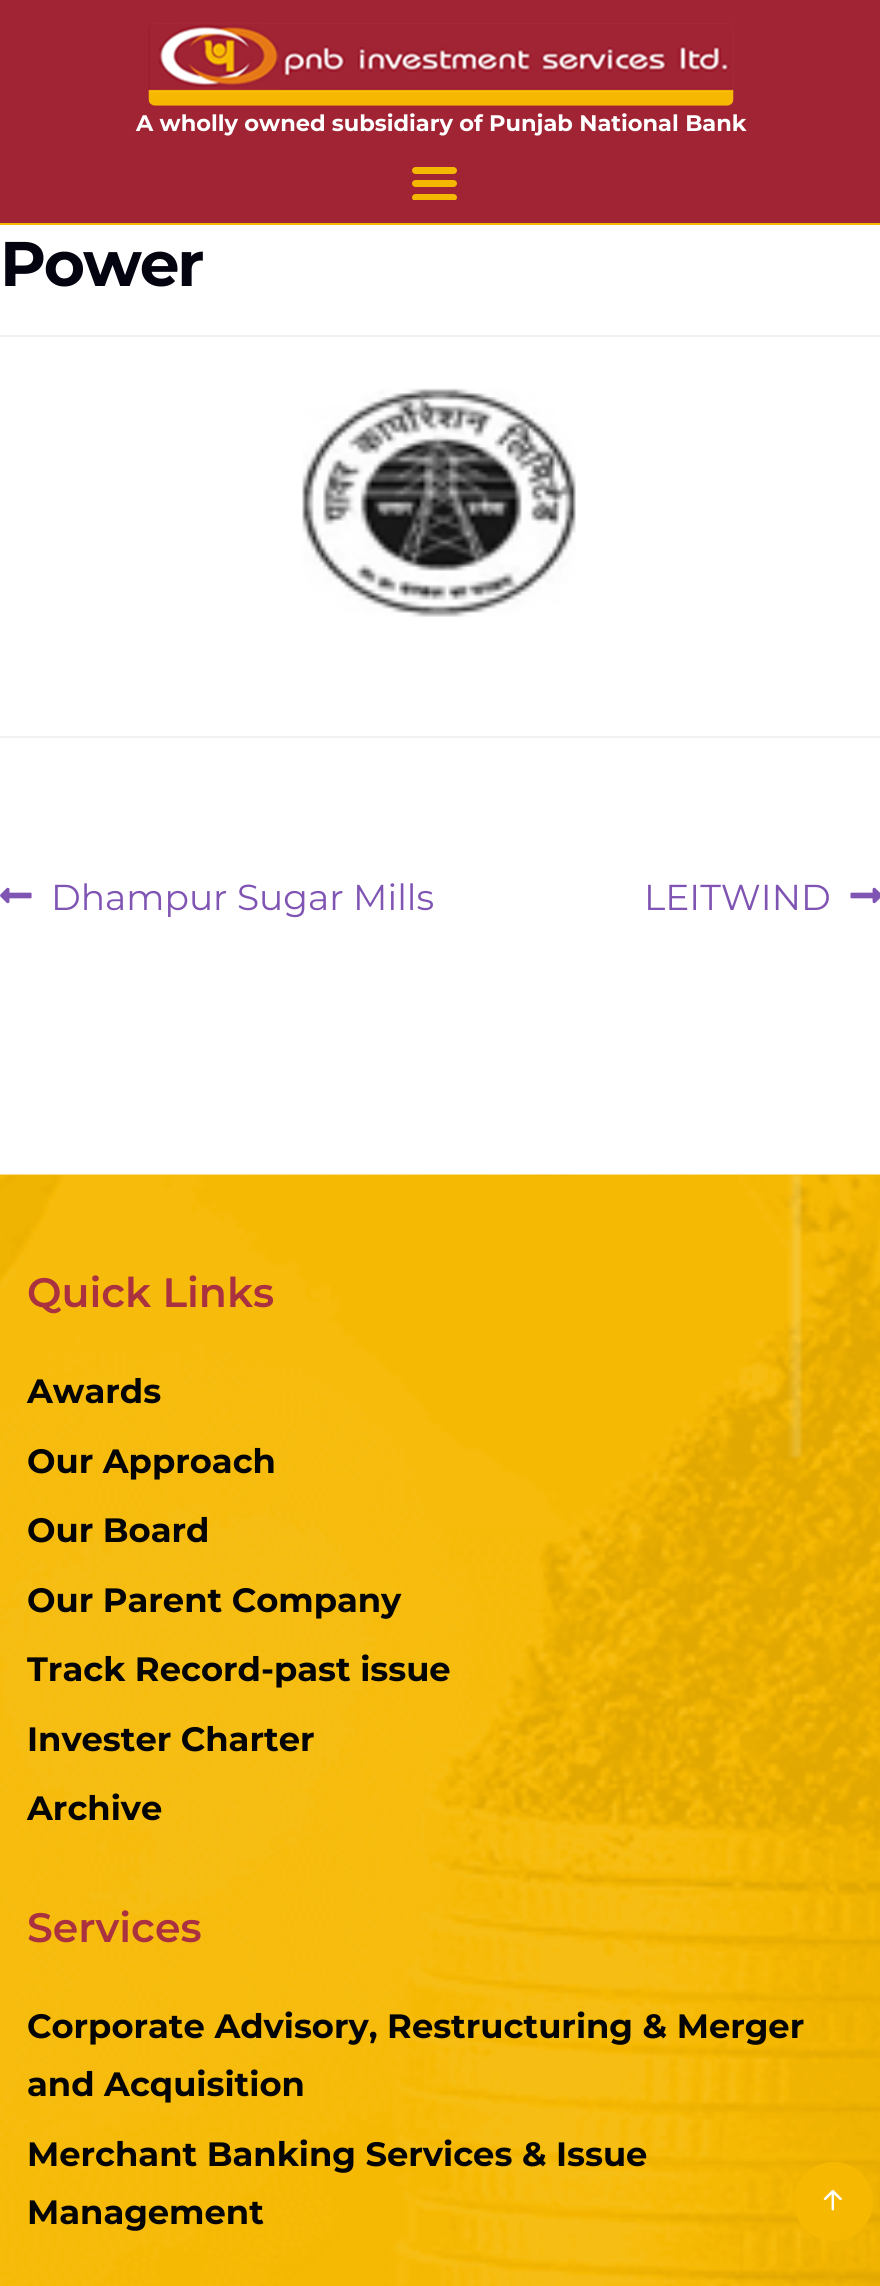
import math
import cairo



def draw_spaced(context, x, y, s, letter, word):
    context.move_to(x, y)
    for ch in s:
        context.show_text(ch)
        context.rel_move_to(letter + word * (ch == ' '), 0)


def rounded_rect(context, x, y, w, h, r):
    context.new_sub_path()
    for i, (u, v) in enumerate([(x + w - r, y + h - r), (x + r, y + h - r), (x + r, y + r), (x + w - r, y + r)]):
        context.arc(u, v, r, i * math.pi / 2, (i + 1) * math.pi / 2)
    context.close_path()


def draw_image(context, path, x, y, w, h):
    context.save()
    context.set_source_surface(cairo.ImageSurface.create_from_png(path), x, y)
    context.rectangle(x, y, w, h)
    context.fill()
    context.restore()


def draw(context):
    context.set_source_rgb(1, 1, 1)
    context.paint()
    context.set_source_rgb(161 / 255, 36 / 255, 52 / 255)
    context.rectangle(0, 0, 880, 223)
    context.fill()
    context.set_source_rgb(246 / 255, 184 / 255, 1 / 255)
    context.rectangle(0, 223, 880, 2)
    context.fill()
    draw_image(context, "images/1.png", 148, 23, 586, 83)
    context.set_source_rgb(245 / 255, 184 / 255, 1 / 255)
    rounded_rect(context, 412, 167, 45, 7, 3.5)
    context.fill()
    rounded_rect(context, 412, 180, 45, 7, 3.5)
    context.fill()
    context.save()
    context.rectangle(27, 160, 828, 40)
    context.clip()
    rounded_rect(context, 412, 194, 45, 7, 3.5)
    context.fill()
    context.restore()
    context.set_source_rgb(242 / 255, 242 / 255, 242 / 255)
    context.rectangle(0, 335, 880, 2)
    context.fill()
    draw_image(context, "images/2.png", 302, 388, 274, 229)
    context.rectangle(0, 736, 880, 2)
    context.fill()
    draw_image(context, "images/3.png", 0, 887, 32, 17)
    draw_image(context, "images/4.png", 850, 887, 30, 17)
    draw_image(context, "images/5.png", 0, 1174, 880, 1112)
    context.set_source_rgb(246 / 255, 184 / 255, 1 / 255)
    context.arc(833.5, 2201.5, 39.5, 0, 2 * math.pi)
    context.fill()
    draw_image(context, "images/6.png", 823, 2189, 19, 22)
    context.select_font_face("Montserrat", cairo.FontSlant.NORMAL, cairo.FontWeight.BOLD)
    context.set_font_size(22.5)
    context.set_source_rgb(1, 1, 1)
    context.move_to(136, 131)
    context.show_text("A wholly owned subsidiary of Punjab National Bank")
    context.set_font_size(63)
    context.set_source_rgb(4 / 255, 4 / 255, 17 / 255)
    draw_spaced(context, 0, 286, "Power", -2.25, 0)
    context.select_font_face("Montserrat")
    context.set_font_size(36)
    context.set_source_rgb(127 / 255, 84 / 255, 179 / 255)
    context.move_to(51, 910)
    context.show_text("Dhampur Sugar Mills")
    context.move_to(644, 910)
    context.show_text("LEITWIND")
    context.select_font_face("Montserrat SemiBold")
    context.set_font_size(41)
    context.set_source_rgb(169 / 255, 49 / 255, 64 / 255)
    context.move_to(27, 1307)
    context.show_text("Quick Links")
    context.select_font_face("Montserrat", cairo.FontSlant.NORMAL, cairo.FontWeight.BOLD)
    context.set_font_size(33.75)
    context.set_source_rgb(4 / 255, 4 / 255, 4 / 255)
    context.move_to(27, 1403)
    context.show_text("Awards")
    context.move_to(27, 1473)
    context.show_text("Our Approach")
    context.move_to(27, 1542)
    context.show_text("Our Board")
    context.move_to(27, 1612)
    context.show_text("Our Parent Company")
    context.move_to(27, 1681)
    context.show_text("Track Record-past issue")
    context.move_to(27, 1751)
    context.show_text("Invester Charter")
    context.move_to(27, 1820)
    context.show_text("Archive")
    context.select_font_face("Montserrat SemiBold")
    context.set_font_size(41)
    context.set_source_rgb(169 / 255, 49 / 255, 64 / 255)
    context.move_to(27, 1942)
    context.show_text("Services")
    context.select_font_face("Montserrat", cairo.FontSlant.NORMAL, cairo.FontWeight.BOLD)
    context.set_font_size(33.75)
    context.set_source_rgb(4 / 255, 4 / 255, 4 / 255)
    context.move_to(27, 2038)
    context.show_text("Corporate Advisory, Restructuring & Merger")
    context.move_to(27, 2096)
    context.show_text("and Acquisition")
    context.move_to(27, 2166)
    context.show_text("Merchant Banking Services & Issue")
    context.move_to(27, 2224)
    context.show_text("Management")


surface = cairo.ImageSurface(cairo.Format.RGB24, 880, 2286)
context = cairo.Context(surface)
options = cairo.FontOptions()
options.set_hint_metrics(cairo.HintMetrics.OFF)
options.set_hint_style(cairo.HintStyle.NONE)
context.set_font_options(options)
context.set_miter_limit(4)
draw(context)
surface.write_to_png("out.png")
